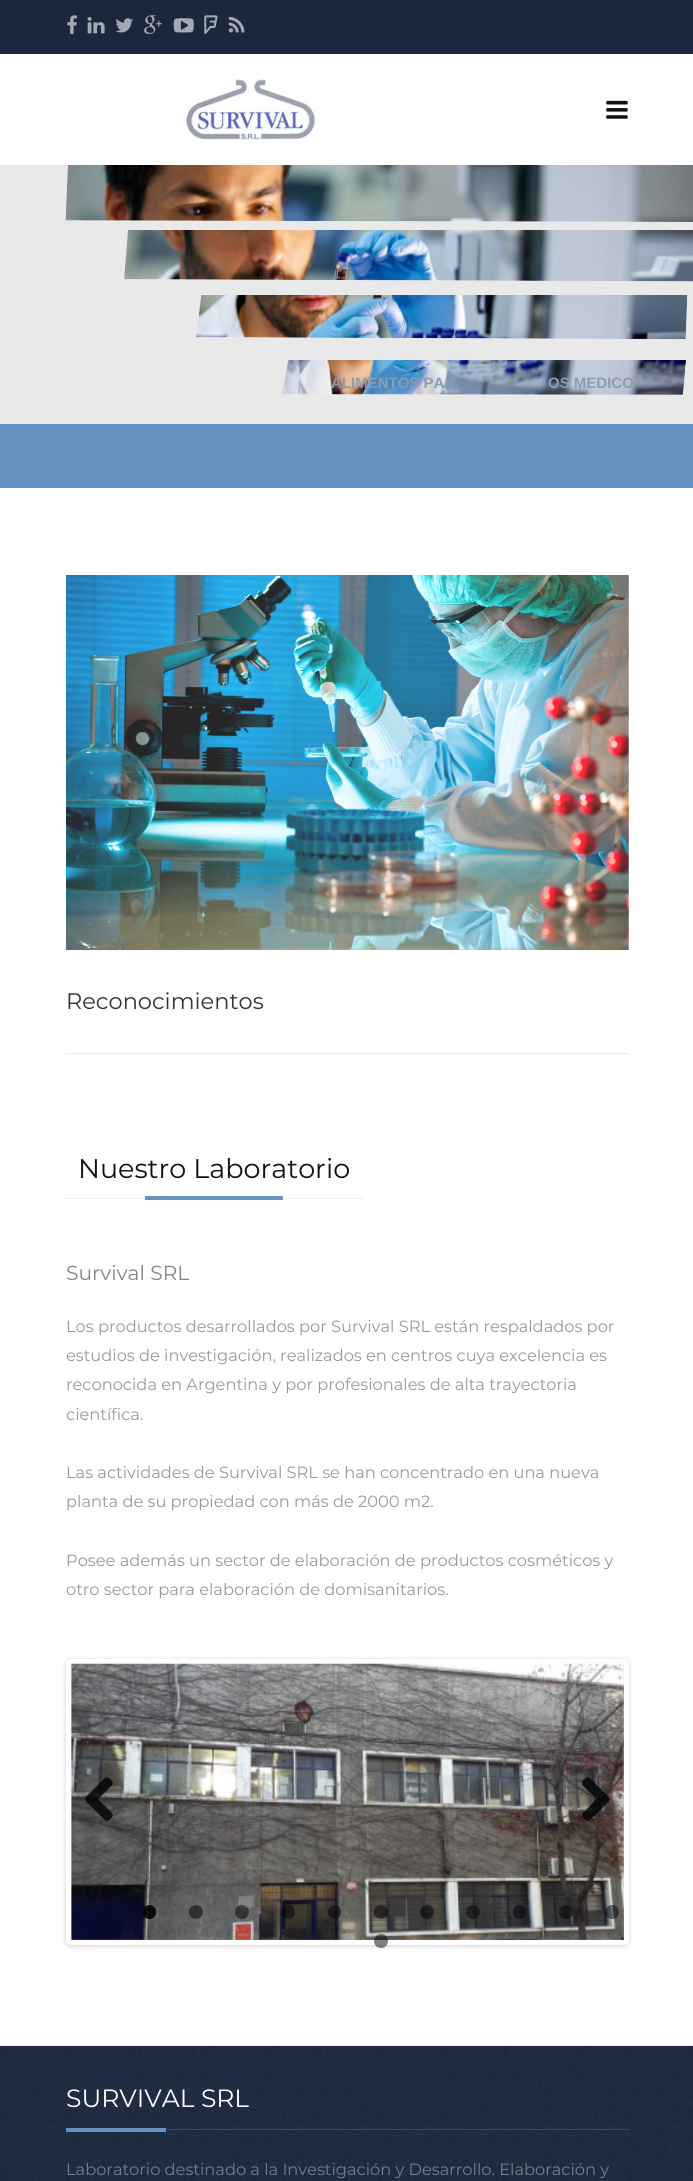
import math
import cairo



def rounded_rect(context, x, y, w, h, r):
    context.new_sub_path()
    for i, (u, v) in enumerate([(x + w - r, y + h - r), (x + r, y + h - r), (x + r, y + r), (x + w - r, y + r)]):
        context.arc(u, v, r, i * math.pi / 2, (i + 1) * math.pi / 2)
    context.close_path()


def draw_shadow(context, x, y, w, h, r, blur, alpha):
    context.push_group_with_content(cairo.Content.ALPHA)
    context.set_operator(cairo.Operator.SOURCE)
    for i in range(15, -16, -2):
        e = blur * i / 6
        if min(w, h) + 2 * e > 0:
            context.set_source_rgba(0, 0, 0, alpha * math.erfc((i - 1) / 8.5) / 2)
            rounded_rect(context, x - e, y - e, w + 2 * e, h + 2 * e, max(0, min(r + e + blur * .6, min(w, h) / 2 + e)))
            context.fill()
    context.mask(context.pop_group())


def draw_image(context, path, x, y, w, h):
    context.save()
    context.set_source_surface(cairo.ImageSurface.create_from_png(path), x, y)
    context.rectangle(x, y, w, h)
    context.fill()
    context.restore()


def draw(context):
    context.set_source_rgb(1, 1, 1)
    context.paint()
    context.set_source_rgb(27 / 255, 39 / 255, 61 / 255)
    context.rectangle(0, 0, 693, 54)
    context.fill()
    draw_image(context, "images/1.png", 67, 15, 10, 19)
    draw_image(context, "images/2.png", 87, 17, 18, 17)
    draw_image(context, "images/3.png", 115, 18, 18, 15)
    draw_image(context, "images/4.png", 144, 15, 18, 19)
    draw_image(context, "images/5.png", 173, 18, 21, 15)
    draw_image(context, "images/6.png", 204, 15, 14, 19)
    draw_image(context, "images/7.png", 228, 16, 17, 17)
    draw_image(context, "images/8.png", 184, 79, 132, 61)
    draw_image(context, "images/9.png", 606, 100, 22, 19)
    context.set_source_rgb(233 / 255, 233 / 255, 233 / 255)
    context.rectangle(0, 165, 693, 259)
    context.fill()
    draw_image(context, "images/10.png", 65, 165, 628, 57)
    draw_image(context, "images/11.png", 124, 230, 569, 52)
    draw_image(context, "images/12.png", 196, 295, 492, 45)
    draw_image(context, "images/13.png", 282, 360, 404, 35)
    context.set_source_rgb(101 / 255, 149 / 255, 191 / 255)
    context.rectangle(0, 424, 693, 64)
    context.fill()
    draw_image(context, "images/14.png", 66, 575, 563, 375)
    context.set_source_rgb(235 / 255, 235 / 255, 235 / 255)
    context.rectangle(66, 1053, 563, 1)
    context.fill()
    context.set_source_rgb(238 / 255, 238 / 255, 238 / 255)
    context.rectangle(0, 2045, 693, 1)
    context.fill()
    context.rectangle(66, 1198, 297, 1)
    context.fill()
    context.set_source_rgb(101 / 255, 149 / 255, 191 / 255)
    context.rectangle(145, 1196, 138, 4)
    context.fill()
    context.set_source_rgb(0, 0, 0)
    draw_shadow(context, 66, 1660, 563, 286, 5, 2.5, 0.2)
    context.set_source_rgb(1, 1, 1)
    rounded_rect(context, 68.5, 1661.5, 558, 281, 2.5)
    context.fill_preserve()
    context.set_line_width(5)
    context.stroke()
    draw_image(context, "images/15.png", 71, 1663, 553, 277)
    draw_image(context, "images/16.png", 623, 1664, 1, 274)
    draw_image(context, "images/17.png", 85, 1777, 28, 44)
    draw_image(context, "images/18.png", 582, 1777, 28, 44)
    context.set_source_rgba(0, 0, 0, 0.9)
    rounded_rect(context, 143, 1905, 13, 14, 6.5)
    context.fill()
    context.set_source_rgba(0, 0, 0, 0.5)
    context.arc(196, 1912, 7, 0, 2 * math.pi)
    context.fill()
    context.arc(242, 1912, 7, 0, 2 * math.pi)
    context.fill()
    context.arc(288, 1912, 7, 0, 2 * math.pi)
    context.fill()
    rounded_rect(context, 328, 1905, 13, 14, 6.5)
    context.fill()
    context.arc(381, 1912, 7, 0, 2 * math.pi)
    context.fill()
    context.arc(427, 1912, 7, 0, 2 * math.pi)
    context.fill()
    context.arc(473, 1912, 7, 0, 2 * math.pi)
    context.fill()
    rounded_rect(context, 513, 1905, 13, 14, 6.5)
    context.fill()
    context.arc(566, 1912, 7, 0, 2 * math.pi)
    context.fill()
    context.arc(612, 1912, 7, 0, 2 * math.pi)
    context.fill()
    context.arc(381, 1941, 7, 0, 2 * math.pi)
    context.fill()
    context.set_source_rgb(27 / 255, 39 / 255, 61 / 255)
    context.rectangle(0, 2046, 693, 135)
    context.fill()
    draw_image(context, "images/19.png", 0, 2046, 693, 135)
    context.set_source_rgb(101 / 255, 149 / 255, 191 / 255)
    context.rectangle(66, 2128, 100, 4)
    context.fill()
    context.set_source_rgba(1, 1, 1, 0.15)
    context.rectangle(166, 2129, 463, 1)
    context.fill()
    context.select_font_face("Liberation Sans", cairo.FontSlant.NORMAL, cairo.FontWeight.BOLD)
    context.set_font_size(15)
    context.set_source_rgb(140 / 255, 156 / 255, 176 / 255)
    context.move_to(331, 388)
    context.show_text("ALIMENTOS PA")
    context.move_to(548, 388)
    context.show_text("OS MEDICO")
    context.select_font_face("Montserrat")
    context.set_font_size(22.5)
    context.set_source_rgb(52 / 255, 52 / 255, 52 / 255)
    context.move_to(66, 1009)
    context.show_text("Reconocimientos")
    context.set_font_size(27)
    context.set_source_rgb(17 / 255, 17 / 255, 17 / 255)
    context.move_to(78, 1178)
    context.show_text("Nuestro Laboratorio")
    context.set_font_size(20.25)
    context.set_source_rgb(132 / 255, 132 / 255, 132 / 255)
    context.move_to(66, 1280)
    context.show_text("Survival SRL")
    context.set_font_size(16.25)
    context.set_source_rgb(153 / 255, 153 / 255, 153 / 255)
    context.move_to(66, 1332)
    context.show_text("Los productos desarrollados por Survival SRL están respaldados por")
    context.move_to(66, 1361)
    context.show_text("estudios de investigación, realizados en centros cuya excelencia es")
    context.move_to(66, 1390)
    context.show_text("reconocida en Argentina y por profesionales de alta trayectoria")
    context.move_to(66, 1420)
    context.show_text("científica.")
    context.move_to(66, 1478)
    context.show_text("Las actividades de Survival SRL se han concentrado en una nueva")
    context.move_to(66, 1507)
    context.show_text("planta de su propiedad con más de 2000 m2.")
    context.move_to(66, 1566)
    context.show_text("Posee además un sector de elaboración de productos cosméticos y")
    context.move_to(66, 1595)
    context.show_text("otro sector para elaboración de domisanitarios.")
    context.set_font_size(25)
    context.set_source_rgb(1, 1, 1)
    context.move_to(66, 2107)
    context.show_text("SURVIVAL SRL")
    context.set_font_size(16.25)
    context.set_source_rgb(118 / 255, 125 / 255, 140 / 255)
    context.move_to(66, 2175)
    context.show_text("Laboratorio destinado a la Investigación y Desarrollo. Elaboración y")


surface = cairo.ImageSurface(cairo.Format.RGB24, 693, 2181)
context = cairo.Context(surface)
options = cairo.FontOptions()
options.set_hint_metrics(cairo.HintMetrics.OFF)
options.set_hint_style(cairo.HintStyle.NONE)
context.set_font_options(options)
context.set_miter_limit(4)
draw(context)
surface.write_to_png("out.png")
